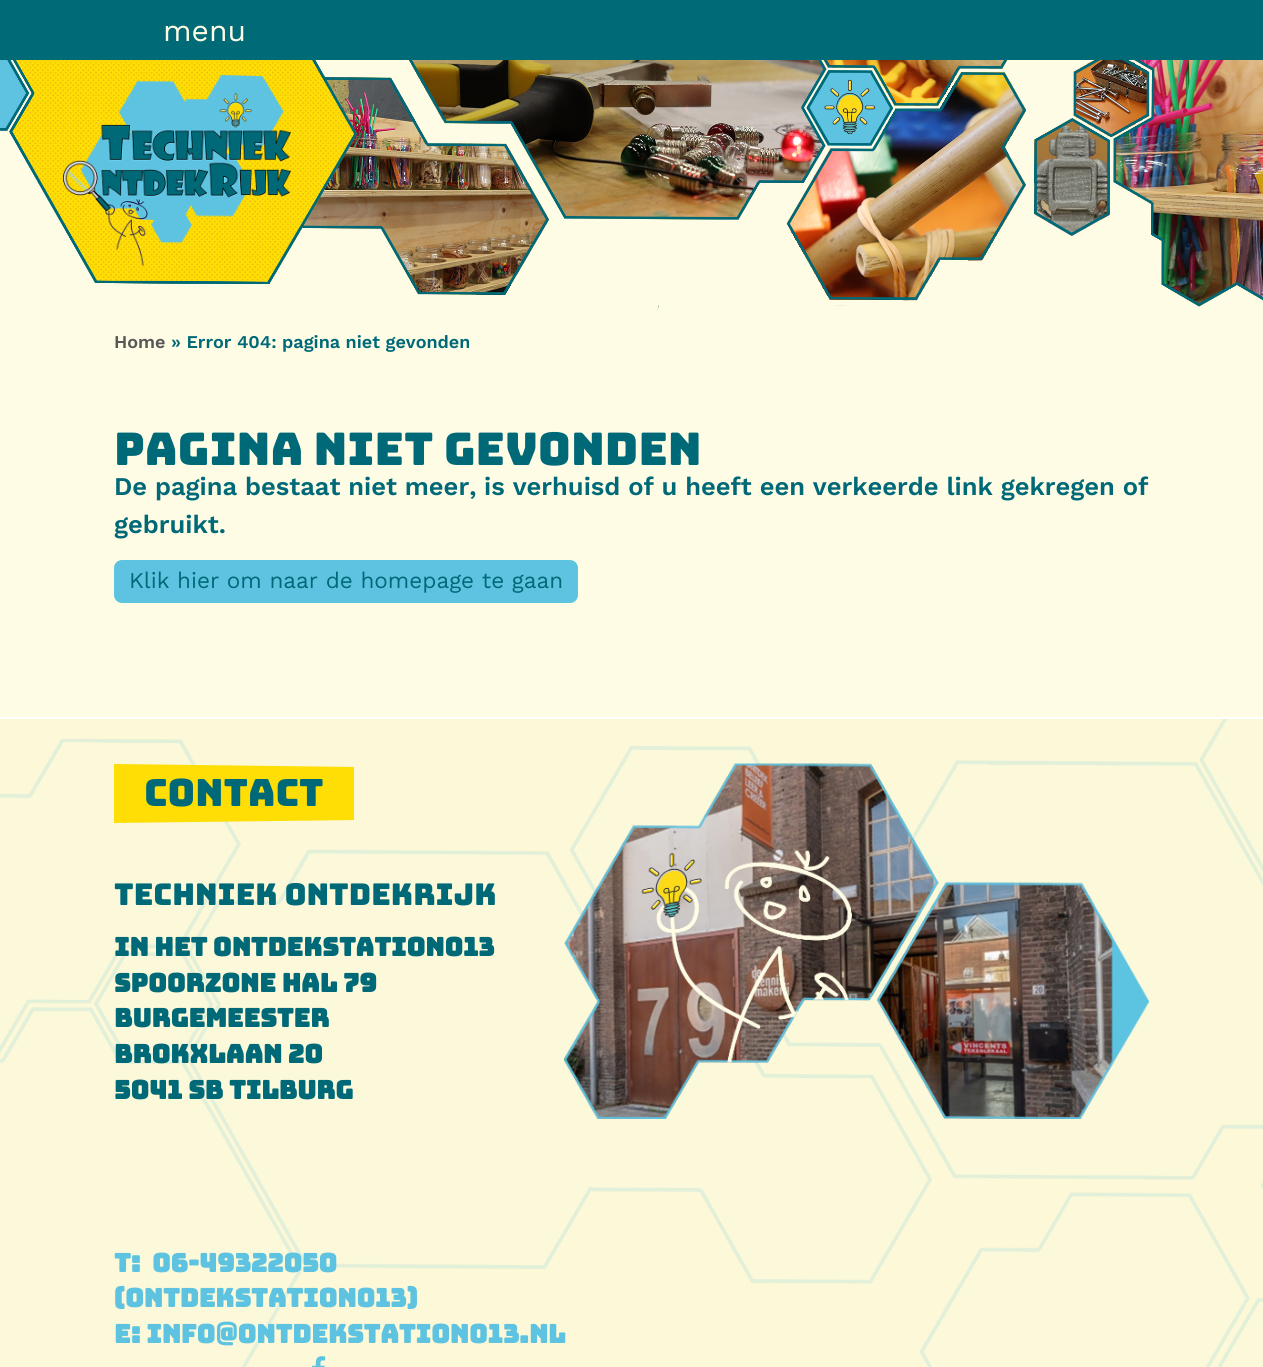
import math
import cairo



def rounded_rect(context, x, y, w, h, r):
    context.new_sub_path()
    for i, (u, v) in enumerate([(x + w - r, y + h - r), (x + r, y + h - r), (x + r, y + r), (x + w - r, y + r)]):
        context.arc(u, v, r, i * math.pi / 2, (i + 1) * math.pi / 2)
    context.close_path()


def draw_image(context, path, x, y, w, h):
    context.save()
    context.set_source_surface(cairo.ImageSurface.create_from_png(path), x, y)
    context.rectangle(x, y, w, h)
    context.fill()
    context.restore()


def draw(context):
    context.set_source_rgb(1, 252 / 255, 230 / 255)
    context.paint()
    context.set_source_rgb(0, 106 / 255, 119 / 255)
    context.rectangle(0, 0, 1263, 60)
    context.fill()
    draw_image(context, "images/1.png", 0, 60, 1263, 252)
    draw_image(context, "images/2.png", 63, 75, 228, 191)
    context.set_source_rgb(93 / 255, 195 / 255, 225 / 255)
    rounded_rect(context, 114, 560, 464, 43, 8)
    context.fill()
    context.set_source_rgb(252 / 255, 248 / 255, 216 / 255)
    context.rectangle(0, 719, 1263, 648)
    context.fill()
    draw_image(context, "images/3.png", 0, 719, 1263, 648)
    context.set_source_rgb(1, 1, 1)
    context.rectangle(0, 717, 1263, 2)
    context.fill()
    context.set_source_rgb(1, 222 / 255, 6 / 255)
    context.set_fill_rule(cairo.FillRule.EVEN_ODD)
    context.new_path()
    context.move_to(114, 764)
    context.line_to(354, 767)
    context.line_to(354, 820)
    context.line_to(114, 823)
    context.close_path()
    context.fill()
    draw_image(context, "images/4.png", 312, 1356, 14, 11)
    draw_image(context, "images/5.png", 564, 763, 585, 356)
    context.select_font_face("Work Sans")
    context.set_font_size(30)
    context.set_source_rgb(1, 252 / 255, 230 / 255)
    context.move_to(163, 41)
    context.show_text("menu")
    context.select_font_face("Work Sans SemiBold")
    context.set_font_size(18)
    context.set_source_rgb(87 / 255, 87 / 255, 86 / 255)
    context.move_to(114, 348)
    context.show_text("Home")
    context.set_source_rgb(0, 105 / 255, 120 / 255)
    context.move_to(171, 348)
    context.show_text("» Error 404: pagina niet gevonden")
    context.select_font_face("Bungee")
    context.set_font_size(45)
    context.move_to(114, 465)
    context.show_text("PAGINA NIET GEVONDEN")
    context.select_font_face("Work Sans SemiBold")
    context.set_font_size(25.5)
    context.move_to(114, 495)
    context.show_text("De pagina bestaat niet meer, is verhuisd of u heeft een verkeerde link gekregen of")
    context.move_to(114, 533)
    context.show_text("gebruikt.")
    context.select_font_face("Work Sans")
    context.set_font_size(22.5)
    context.move_to(129, 588)
    context.show_text("Klik hier om naar de homepage te gaan")
    context.select_font_face("Bungee")
    context.set_font_size(37.5)
    context.move_to(144, 806)
    context.show_text("CONTACT")
    context.set_font_size(30)
    context.move_to(114, 905)
    context.show_text("TECHNIEK ONTDEKRIJK")
    context.select_font_face("Bungee", cairo.FontSlant.NORMAL, cairo.FontWeight.BOLD)
    context.set_font_size(25.5)
    context.move_to(114, 956)
    context.show_text("In het Ontdekstation013")
    context.move_to(114, 992)
    context.show_text("Spoorzone Hal 79")
    context.move_to(114, 1027)
    context.show_text("Burgemeester")
    context.move_to(114, 1063)
    context.show_text("Brokxlaan 20")
    context.move_to(114, 1099)
    context.show_text("5041 SB Tilburg")
    context.set_source_rgb(93 / 255, 195 / 255, 225 / 255)
    context.move_to(114, 1272)
    context.show_text("T:")
    context.move_to(152, 1272)
    context.show_text("06-49322050")
    context.move_to(114, 1307)
    context.show_text("(Ontdekstation013)")
    context.move_to(114, 1343)
    context.show_text("E: info@ontdekstation013.nl")


surface = cairo.ImageSurface(cairo.Format.RGB24, 1263, 1367)
context = cairo.Context(surface)
options = cairo.FontOptions()
options.set_hint_metrics(cairo.HintMetrics.OFF)
options.set_hint_style(cairo.HintStyle.NONE)
context.set_font_options(options)
context.set_miter_limit(4)
draw(context)
surface.write_to_png("out.png")
